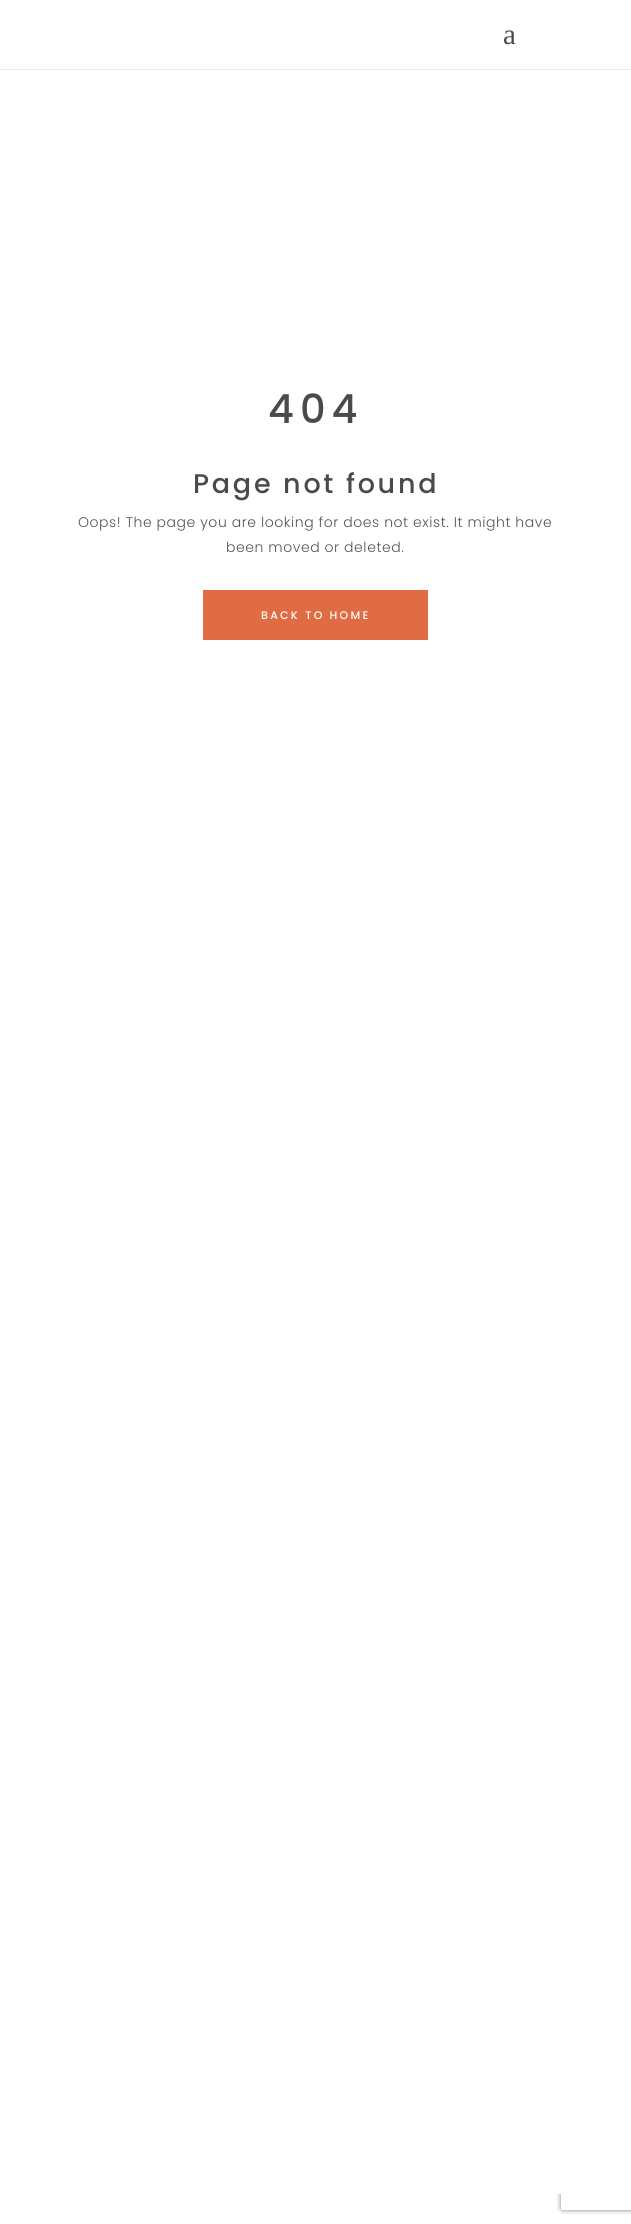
import math
import cairo



def draw_spaced(context, x, y, s, letter, word):
    context.move_to(x, y)
    for ch in s:
        context.show_text(ch)
        context.rel_move_to(letter + word * (ch == ' '), 0)


def rounded_rect(context, x, y, w, h, r):
    context.new_sub_path()
    for i, (u, v) in enumerate([(x + w - r, y + h - r), (x + r, y + h - r), (x + r, y + r), (x + w - r, y + r)]):
        context.arc(u, v, r, i * math.pi / 2, (i + 1) * math.pi / 2)
    context.close_path()


def draw_shadow(context, x, y, w, h, r, blur, alpha):
    context.push_group_with_content(cairo.Content.ALPHA)
    context.set_operator(cairo.Operator.SOURCE)
    for i in range(15, -16, -2):
        e = blur * i / 6
        if min(w, h) + 2 * e > 0:
            context.set_source_rgba(0, 0, 0, alpha * math.erfc((i - 1) / 8.5) / 2)
            rounded_rect(context, x - e, y - e, w + 2 * e, h + 2 * e, max(0, min(r + e + blur * .6, min(w, h) / 2 + e)))
            context.fill()
    context.mask(context.pop_group())


def draw(context):
    context.set_source_rgb(1, 1, 1)
    context.paint()
    context.save()
    context.set_fill_rule(cairo.FillRule.EVEN_ODD)
    context.new_path()
    context.move_to(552, 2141)
    context.line_to(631, 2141)
    context.line_to(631, 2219)
    context.line_to(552, 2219)
    context.close_path()
    context.move_to(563, 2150)
    context.line_to(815, 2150)
    context.curve_to(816, 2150, 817, 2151, 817, 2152)
    context.line_to(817, 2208)
    context.curve_to(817, 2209, 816, 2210, 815, 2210)
    context.line_to(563, 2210)
    context.curve_to(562, 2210, 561, 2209, 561, 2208)
    context.line_to(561, 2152)
    context.curve_to(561, 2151, 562, 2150, 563, 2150)
    context.close_path()
    context.clip()
    context.set_source_rgb(128 / 255, 128 / 255, 128 / 255)
    draw_shadow(context, 561, 2150, 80, 60, 2, 2.5, 1)
    context.restore()
    context.set_source_rgb(1, 1, 1)
    context.rectangle(556, 2145, 75, 49)
    context.fill()
    context.set_source_rgb(235 / 255, 235 / 255, 235 / 255)
    context.rectangle(0, 69, 631, 1)
    context.fill()
    context.set_source_rgb(224 / 255, 108 / 255, 67 / 255)
    context.rectangle(203, 590, 225, 50)
    context.fill()
    context.select_font_face("Liberation Serif")
    context.set_font_size(29)
    context.set_source_rgb(76 / 255, 73 / 255, 74 / 255)
    context.move_to(503, 44)
    context.show_text("a")
    context.select_font_face("Poppins Medium")
    context.set_font_size(40)
    draw_spaced(context, 268, 423, "404", 6, 0)
    context.set_font_size(27)
    draw_spaced(context, 193, 493, "Page not found", 2.75, 0)
    context.select_font_face("Poppins Light")
    context.set_font_size(14)
    context.set_source_rgb(85 / 255, 85 / 255, 85 / 255)
    draw_spaced(context, 78, 527, "Oops! The page you are looking for does not exist. It might have", 0.55, 0)
    draw_spaced(context, 226, 552, "been moved or deleted.", 0.55, 0)
    context.select_font_face("Poppins Medium")
    context.set_font_size(11)
    context.set_source_rgb(1, 1, 1)
    draw_spaced(context, 261, 619, "BACK TO HOME", 2.25, 0)


surface = cairo.ImageSurface(cairo.Format.RGB24, 631, 2224)
context = cairo.Context(surface)
options = cairo.FontOptions()
options.set_hint_metrics(cairo.HintMetrics.OFF)
options.set_hint_style(cairo.HintStyle.NONE)
context.set_font_options(options)
context.set_miter_limit(4)
draw(context)
surface.write_to_png("out.png")
